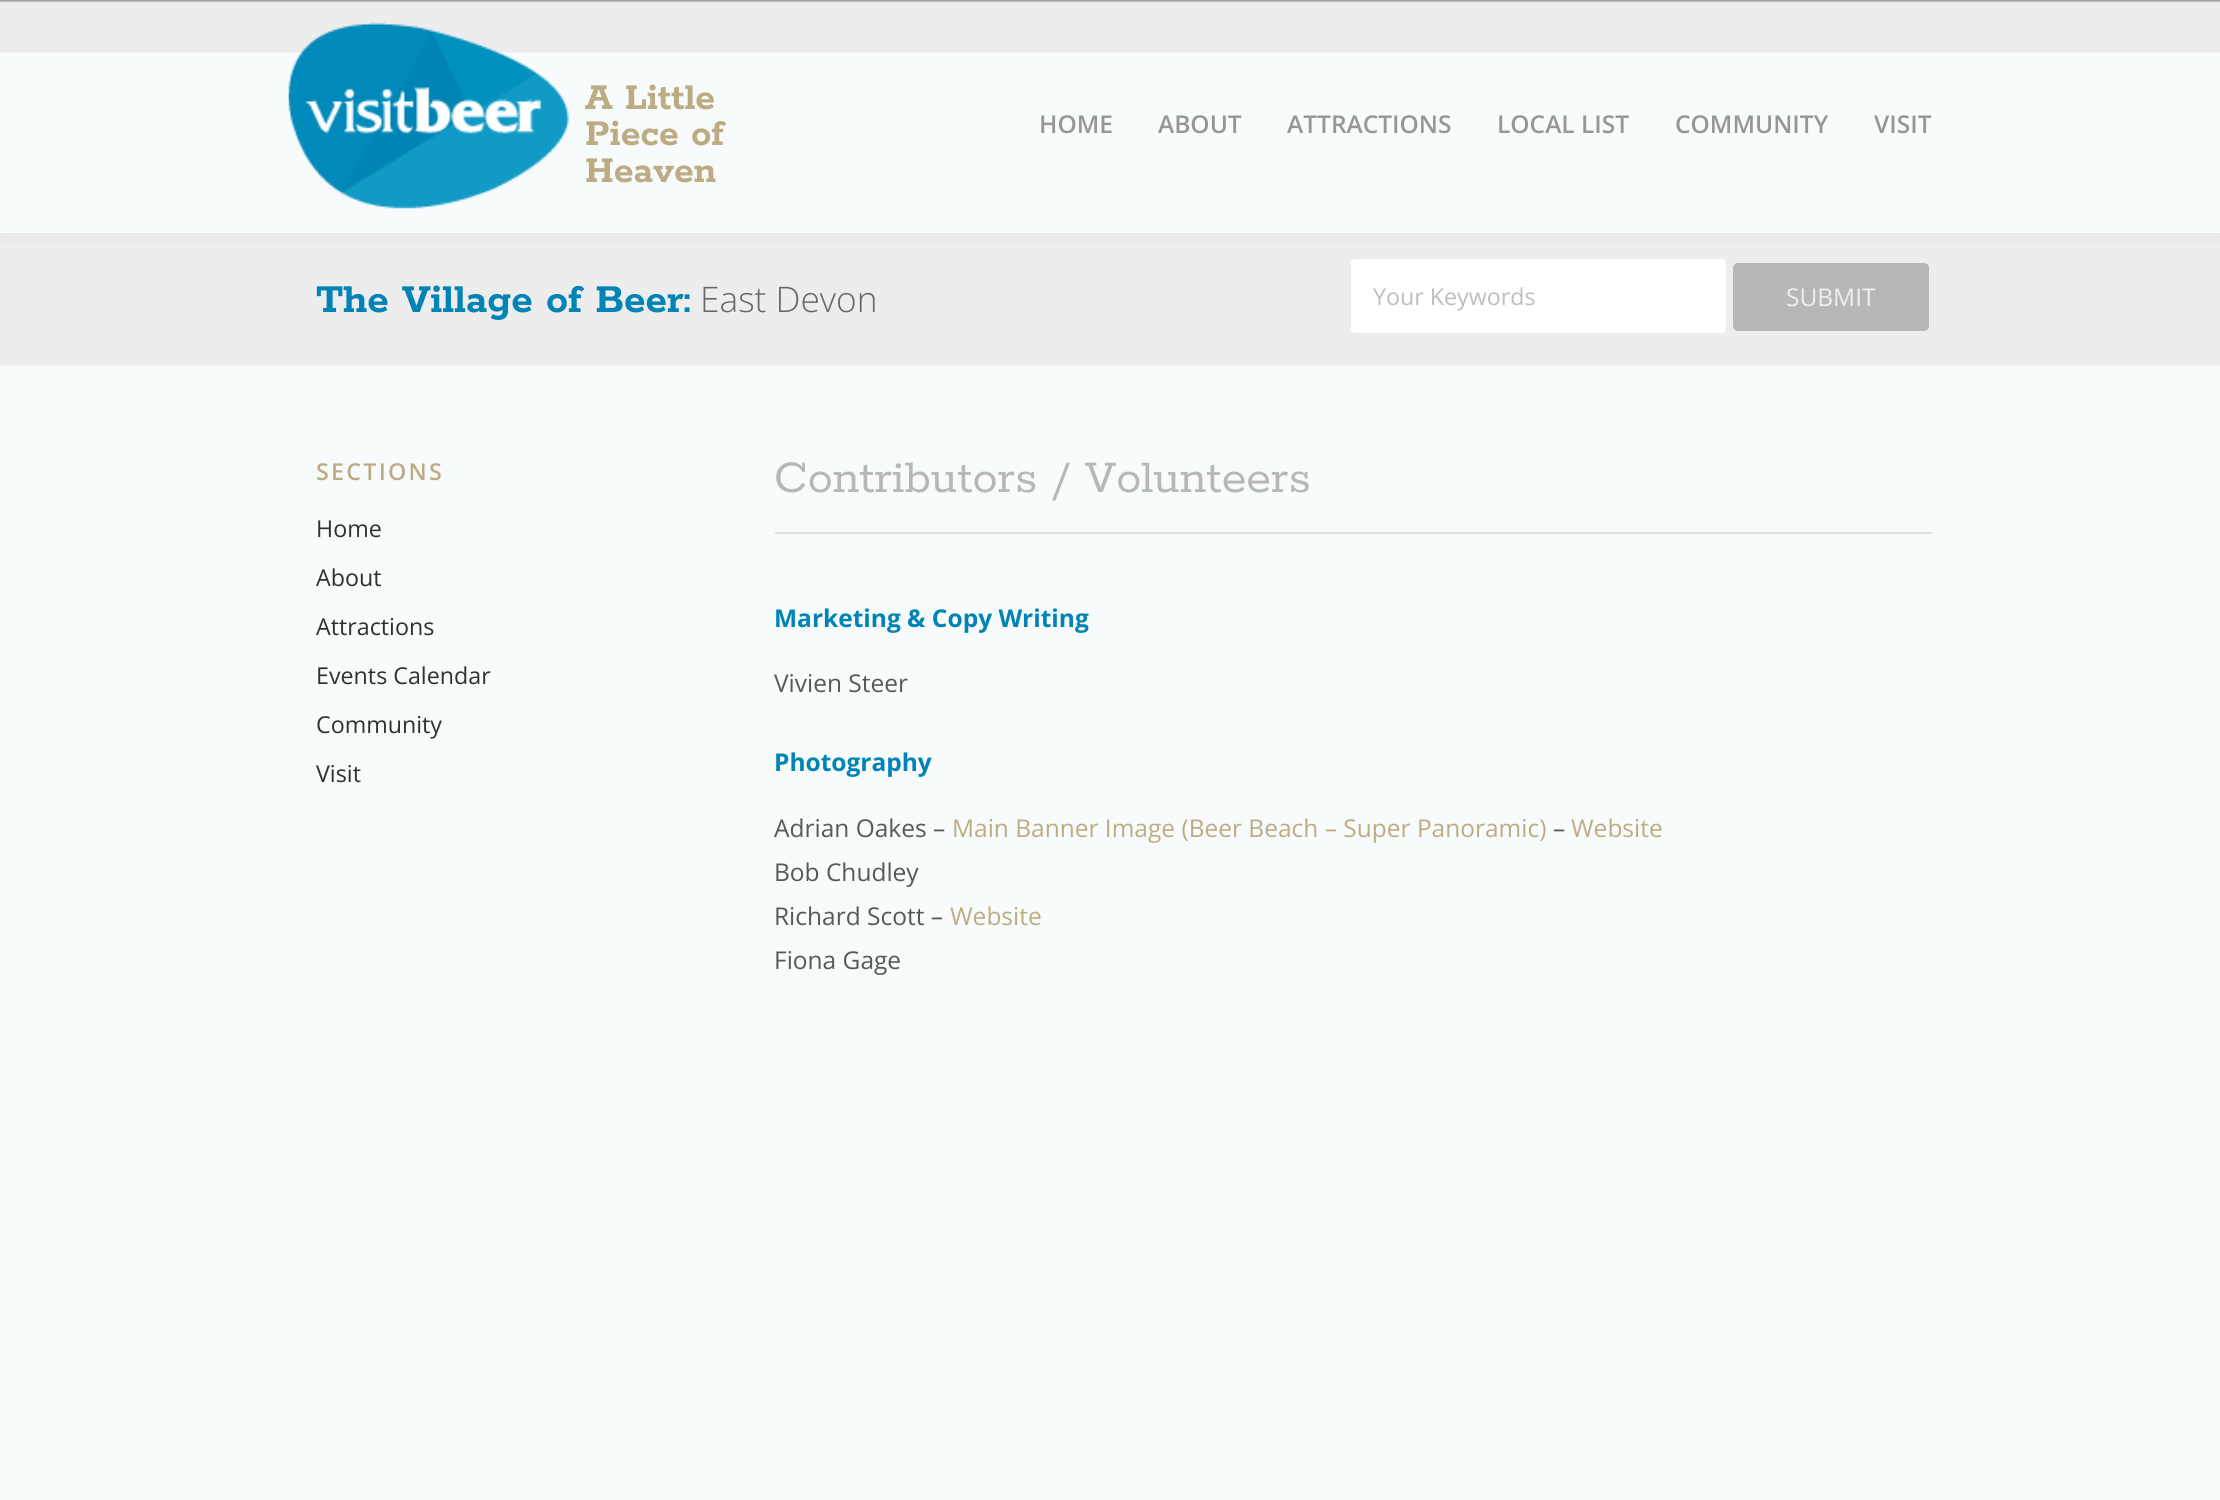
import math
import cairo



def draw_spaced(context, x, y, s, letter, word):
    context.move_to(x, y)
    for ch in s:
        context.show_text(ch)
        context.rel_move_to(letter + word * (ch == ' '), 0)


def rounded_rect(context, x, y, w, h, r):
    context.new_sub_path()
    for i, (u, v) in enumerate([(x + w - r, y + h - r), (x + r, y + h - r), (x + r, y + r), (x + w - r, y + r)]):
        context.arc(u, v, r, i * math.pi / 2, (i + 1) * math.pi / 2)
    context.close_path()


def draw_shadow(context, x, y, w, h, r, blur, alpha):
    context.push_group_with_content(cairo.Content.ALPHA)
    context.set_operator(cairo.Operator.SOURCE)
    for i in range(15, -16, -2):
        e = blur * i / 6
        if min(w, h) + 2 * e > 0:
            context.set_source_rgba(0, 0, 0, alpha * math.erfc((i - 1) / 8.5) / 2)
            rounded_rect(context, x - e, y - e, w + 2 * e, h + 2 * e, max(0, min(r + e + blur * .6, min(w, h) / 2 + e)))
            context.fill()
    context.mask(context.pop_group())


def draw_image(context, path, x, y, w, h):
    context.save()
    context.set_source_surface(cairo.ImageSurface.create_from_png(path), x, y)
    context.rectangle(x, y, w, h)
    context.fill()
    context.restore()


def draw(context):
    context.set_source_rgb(248 / 255, 251 / 255, 251 / 255)
    context.paint()
    context.set_source_rgb(237 / 255, 237 / 255, 237 / 255)
    context.rectangle(0, 233, 2220, 131)
    context.fill()
    context.set_source_rgb(119 / 255, 119 / 255, 119 / 255)
    draw_shadow(context, -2, -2, 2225, 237, 0, 7, 0.08)
    context.set_source_rgb(248 / 255, 251 / 255, 251 / 255)
    context.rectangle(0, 52, 2220, 181)
    context.fill()
    draw_image(context, "images/1.png", 0, 0, 2220, 53)
    draw_image(context, "images/2.png", 288, 22, 281, 187)
    context.set_source_rgb(1, 1, 1)
    rounded_rect(context, 1352, 260, 373, 72, 3)
    context.fill_preserve()
    context.stroke()
    context.set_source_rgb(183 / 255, 183 / 255, 183 / 255)
    rounded_rect(context, 1733, 263, 196, 68, 5)
    context.fill()
    context.set_source_rgb(241 / 255, 243 / 255, 243 / 255)
    context.rectangle(0, 364, 2220, 2)
    context.fill()
    context.set_source_rgb(224 / 255, 224 / 255, 220 / 255)
    context.rectangle(775, 532, 1157, 2)
    context.fill()
    context.select_font_face("Rokkitt", cairo.FontSlant.NORMAL, cairo.FontWeight.BOLD)
    context.set_font_size(40.5)
    context.set_source_rgb(189 / 255, 172 / 255, 131 / 255)
    context.move_to(585, 109)
    context.show_text("A Little")
    context.move_to(585, 145)
    context.show_text("Piece of")
    context.move_to(585, 182)
    context.show_text("Heaven")
    context.select_font_face("Open Sans SemiBold")
    context.set_font_size(24.5)
    context.set_source_rgb(151 / 255, 150 / 255, 150 / 255)
    context.move_to(1039, 133)
    context.show_text("HOME")
    context.move_to(1158, 133)
    context.show_text("ABOUT")
    context.move_to(1287, 133)
    context.show_text("ATTRACTIONS")
    context.move_to(1497, 133)
    context.show_text("LOCAL LIST")
    context.move_to(1675, 133)
    context.show_text("COMMUNITY")
    context.move_to(1874, 133)
    context.show_text("VISIT")
    context.select_font_face("Rokkitt", cairo.FontSlant.NORMAL, cairo.FontWeight.BOLD)
    context.set_font_size(44)
    context.set_source_rgb(0, 132 / 255, 182 / 255)
    context.move_to(316, 312)
    context.show_text("The Village of Beer:")
    context.select_font_face("Open Sans Light")
    context.set_font_size(35.25)
    context.set_source_rgb(104 / 255, 104 / 255, 104 / 255)
    context.move_to(700, 312)
    context.show_text("East Devon")
    context.select_font_face("Open Sans")
    context.set_font_size(23.25)
    context.set_source_rgb(189 / 255, 191 / 255, 191 / 255)
    context.move_to(1373, 305)
    context.show_text("Your Keywords")
    context.set_font_size(24.5)
    context.set_source_rgb(239 / 255, 239 / 255, 239 / 255)
    context.move_to(1786, 306)
    context.show_text("SUBMIT")
    context.select_font_face("Open Sans SemiBold")
    context.set_font_size(23.25)
    context.set_source_rgb(189 / 255, 172 / 255, 131 / 255)
    draw_spaced(context, 316, 480, "SECTIONS", 2.25, 0)
    context.select_font_face("Open Sans")
    context.set_source_rgb(48 / 255, 48 / 255, 48 / 255)
    context.move_to(316, 537)
    context.show_text("Home")
    context.move_to(316, 586)
    context.show_text("About")
    context.move_to(316, 635)
    context.show_text("Attractions")
    context.move_to(316, 684)
    context.show_text("Events Calendar")
    context.move_to(316, 733)
    context.show_text("Community")
    context.move_to(316, 782)
    context.show_text("Visit")
    context.select_font_face("Rokkitt")
    context.set_font_size(50.25)
    context.set_source_rgb(183 / 255, 183 / 255, 183 / 255)
    context.move_to(774, 492)
    context.show_text("Contributors / Volunteers")
    context.select_font_face("Open Sans", cairo.FontSlant.NORMAL, cairo.FontWeight.BOLD)
    context.set_font_size(24.5)
    context.set_source_rgb(0, 132 / 255, 182 / 255)
    context.move_to(774, 627)
    context.show_text("Marketing & Copy Writing")
    context.select_font_face("Open Sans")
    context.set_source_rgb(87 / 255, 88 / 255, 88 / 255)
    context.move_to(774, 692)
    context.show_text("Vivien Steer")
    context.select_font_face("Open Sans", cairo.FontSlant.NORMAL, cairo.FontWeight.BOLD)
    context.set_source_rgb(0, 132 / 255, 182 / 255)
    context.move_to(774, 771)
    context.show_text("Photography")
    context.select_font_face("Open Sans")
    context.set_source_rgb(87 / 255, 88 / 255, 88 / 255)
    context.move_to(774, 837)
    context.show_text("Adrian Oakes –")
    context.set_source_rgb(189 / 255, 172 / 255, 131 / 255)
    context.move_to(952, 837)
    context.show_text("Main Banner Image (Beer Beach – Super Panoramic)")
    context.set_source_rgb(87 / 255, 88 / 255, 88 / 255)
    context.move_to(1553, 837)
    context.show_text("–")
    context.set_source_rgb(189 / 255, 172 / 255, 131 / 255)
    context.move_to(1571, 837)
    context.show_text("Website")
    context.set_source_rgb(87 / 255, 88 / 255, 88 / 255)
    context.move_to(774, 881)
    context.show_text("Bob Chudley")
    context.move_to(774, 925)
    context.show_text("Richard Scott –")
    context.set_source_rgb(189 / 255, 172 / 255, 131 / 255)
    context.move_to(950, 925)
    context.show_text("Website")
    context.set_source_rgb(87 / 255, 88 / 255, 88 / 255)
    context.move_to(774, 969)
    context.show_text("Fiona Gage")


surface = cairo.ImageSurface(cairo.Format.RGB24, 2220, 1500)
context = cairo.Context(surface)
options = cairo.FontOptions()
options.set_hint_metrics(cairo.HintMetrics.OFF)
options.set_hint_style(cairo.HintStyle.NONE)
context.set_font_options(options)
context.set_miter_limit(4)
draw(context)
surface.write_to_png("out.png")
